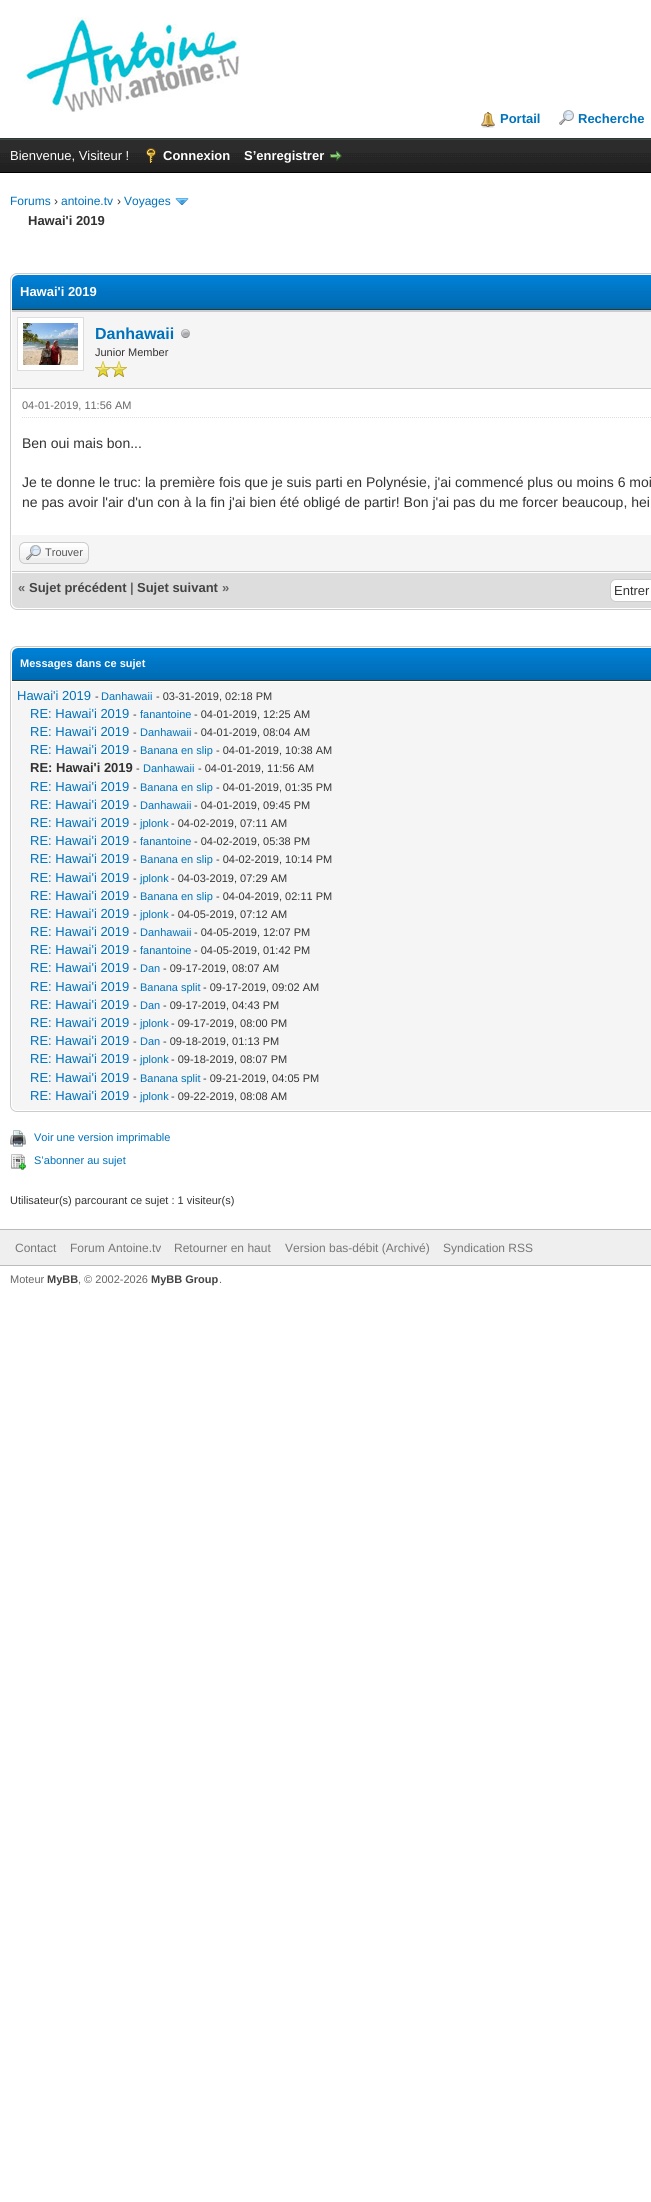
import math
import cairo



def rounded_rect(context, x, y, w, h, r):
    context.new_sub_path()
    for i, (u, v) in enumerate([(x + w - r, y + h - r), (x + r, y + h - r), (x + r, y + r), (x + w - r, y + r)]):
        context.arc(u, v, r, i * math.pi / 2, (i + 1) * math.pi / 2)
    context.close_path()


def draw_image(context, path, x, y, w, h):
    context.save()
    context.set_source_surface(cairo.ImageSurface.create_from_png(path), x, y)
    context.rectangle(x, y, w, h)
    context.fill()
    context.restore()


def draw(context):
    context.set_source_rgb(1, 1, 1)
    context.paint()
    context.set_source_rgb(38 / 255, 60 / 255, 48 / 255)
    context.rectangle(0, 138, 651, 1)
    context.fill()
    draw_image(context, "images/1.png", 23, 17, 217, 95)
    draw_image(context, "images/2.png", 481, 112, 14, 16)
    draw_image(context, "images/3.png", 559, 110, 15, 15)
    draw_image(context, "images/4.png", 0, 140, 651, 32)
    context.set_source_rgb(68 / 255, 68 / 255, 68 / 255)
    context.rectangle(0, 139, 651, 1)
    context.fill()
    context.set_source_rgb(0, 0, 0)
    context.rectangle(0, 172, 651, 1)
    context.fill()
    draw_image(context, "images/5.png", 146, 148, 10, 15)
    draw_image(context, "images/6.png", 330, 151, 12, 10)
    draw_image(context, "images/7.png", 175, 198, 14, 7)
    rounded_rect(context, 10.5, 273.5, 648, 336, 6.5)
    context.set_source_rgb(204 / 255, 204 / 255, 204 / 255)
    context.set_line_width(1)
    context.stroke()
    draw_image(context, "images/8.png", 12, 275, 639, 34)
    context.set_source_rgb(38 / 255, 60 / 255, 48 / 255)
    context.rectangle(12, 309, 639, 1)
    context.fill()
    context.set_source_rgb(245 / 255, 245 / 255, 245 / 255)
    context.rectangle(12, 312, 639, 76)
    context.fill()
    context.set_source_rgb(204 / 255, 204 / 255, 204 / 255)
    context.rectangle(12, 310, 639, 2)
    context.fill()
    context.rectangle(12, 388, 639, 1)
    context.fill()
    context.set_source_rgb(1, 1, 1)
    context.rectangle(17.5, 317.5, 66, 53)
    context.fill_preserve()
    context.set_source_rgb(221 / 255, 221 / 255, 221 / 255)
    context.stroke()
    draw_image(context, "images/9.png", 23, 323, 55, 42)
    draw_image(context, "images/10.png", 181, 329, 9, 9)
    draw_image(context, "images/11.png", 95, 361, 16, 16)
    draw_image(context, "images/11.png", 111, 361, 16, 16)
    context.new_path()
    context.move_to(22, 417.5)
    context.line_to(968, 417.5)
    context.set_dash([1, 1])
    context.stroke()
    context.set_source_rgb(245 / 255, 245 / 255, 245 / 255)
    context.rectangle(12, 535, 639, 36)
    context.fill()
    context.set_source_rgb(204 / 255, 204 / 255, 204 / 255)
    context.rectangle(12, 571, 639, 1)
    context.fill()
    context.set_source_rgb(238 / 255, 238 / 255, 238 / 255)
    rounded_rect(context, 19, 542, 70, 22, 6)
    context.fill()
    draw_image(context, "images/12.png", 19, 543, 70, 15)
    rounded_rect(context, 19.5, 542.5, 69, 21, 5.5)
    context.set_source_rgb(204 / 255, 204 / 255, 204 / 255)
    context.set_dash([])
    context.stroke()
    draw_image(context, "images/13.png", 26, 545, 15, 15)
    context.set_source_rgb(221 / 255, 221 / 255, 221 / 255)
    context.new_path()
    context.move_to(12, 572)
    context.line_to(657, 572)
    context.line_to(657, 602)
    context.curve_to(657, 605.5, 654.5, 608, 651, 608)
    context.line_to(18, 608)
    context.curve_to(14.5, 608, 12, 605.5, 12, 602)
    context.close_path()
    context.fill()
    context.set_source_rgb(1, 1, 1)
    context.rectangle(12, 572, 639, 1)
    context.fill()
    rounded_rect(context, 610.5, 579.5, 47, 22, 5.5)
    context.fill_preserve()
    context.set_source_rgb(204 / 255, 204 / 255, 204 / 255)
    context.stroke()
    rounded_rect(context, 10.5, 646.5, 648, 465, 6.5)
    context.stroke()
    draw_image(context, "images/14.png", 12, 648, 639, 32)
    context.set_source_rgb(38 / 255, 60 / 255, 48 / 255)
    context.rectangle(12, 680, 639, 1)
    context.fill()
    context.set_source_rgb(245 / 255, 245 / 255, 245 / 255)
    context.new_path()
    context.move_to(12, 681)
    context.line_to(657, 681)
    context.line_to(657, 1104)
    context.curve_to(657, 1107.5, 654.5, 1110, 651, 1110)
    context.line_to(18, 1110)
    context.curve_to(14.5, 1110, 12, 1107.5, 12, 1104)
    context.close_path()
    context.fill()
    context.set_source_rgb(1, 1, 1)
    context.rectangle(12, 681, 639, 1)
    context.fill()
    draw_image(context, "images/15.png", 10, 1130, 16, 17)
    draw_image(context, "images/16.png", 11, 1154, 15, 16)
    context.set_source_rgb(239 / 255, 239 / 255, 239 / 255)
    context.rectangle(0, 1230, 651, 35)
    context.fill()
    context.set_source_rgb(187 / 255, 187 / 255, 187 / 255)
    context.rectangle(0, 1229, 651, 1)
    context.fill()
    context.rectangle(0, 1265, 651, 1)
    context.fill()
    context.select_font_face("Liberation Sans", cairo.FontSlant.NORMAL, cairo.FontWeight.BOLD)
    context.set_font_size(13)
    context.set_source_rgb(0, 114 / 255, 188 / 255)
    context.move_to(500, 123)
    context.show_text("Portail")
    context.move_to(578, 123)
    context.show_text("Recherche")
    context.select_font_face("Liberation Sans")
    context.set_source_rgb(1, 1, 1)
    context.move_to(10, 160)
    context.show_text("Bienvenue, Visiteur !")
    context.select_font_face("Liberation Sans", cairo.FontSlant.NORMAL, cairo.FontWeight.BOLD)
    context.move_to(163, 160)
    context.show_text("Connexion")
    context.move_to(244, 160)
    context.show_text("S’enregistrer")
    context.select_font_face("Liberation Sans")
    context.set_font_size(12)
    context.set_source_rgb(0, 114 / 255, 188 / 255)
    context.move_to(10, 205)
    context.show_text("Forums")
    context.set_source_rgb(51 / 255, 51 / 255, 51 / 255)
    context.move_to(54, 205)
    context.show_text("›")
    context.set_source_rgb(0, 114 / 255, 188 / 255)
    context.move_to(61, 205)
    context.show_text("antoine.tv")
    context.set_source_rgb(51 / 255, 51 / 255, 51 / 255)
    context.move_to(117, 205)
    context.show_text("›")
    context.set_source_rgb(0, 114 / 255, 188 / 255)
    context.move_to(124, 205)
    context.show_text("Voyages")
    context.select_font_face("Liberation Sans", cairo.FontSlant.NORMAL, cairo.FontWeight.BOLD)
    context.set_font_size(13)
    context.set_source_rgb(51 / 255, 51 / 255, 51 / 255)
    context.move_to(28, 225)
    context.show_text("Hawai'i 2019")
    context.set_source_rgb(1, 1, 1)
    context.move_to(20, 296)
    context.show_text("Hawai'i 2019")
    context.set_font_size(16)
    context.set_source_rgb(0, 114 / 255, 188 / 255)
    context.move_to(95, 339)
    context.show_text("Danhawaii")
    context.select_font_face("Liberation Sans")
    context.set_font_size(11)
    context.set_source_rgb(51 / 255, 51 / 255, 51 / 255)
    context.move_to(95, 356)
    context.show_text("Junior Member")
    context.set_source_rgb(102 / 255, 102 / 255, 102 / 255)
    context.move_to(22, 409)
    context.show_text("04-01-2019, 11:56 AM")
    context.set_font_size(14)
    context.set_source_rgb(51 / 255, 51 / 255, 51 / 255)
    context.move_to(22, 448)
    context.show_text("Ben oui mais bon...")
    context.move_to(22, 487)
    context.show_text("Je te donne le truc: la première fois que je suis parti en Polynésie, j'ai commencé plus ou moins 6 moi")
    context.move_to(22, 507)
    context.show_text("ne pas avoir l'air d'un con à la fin j'ai bien été obligé de partir! Bon j'ai pas du me forcer beaucoup, hei")
    context.set_font_size(11)
    context.set_source_rgb(85 / 255, 85 / 255, 85 / 255)
    context.move_to(45, 556)
    context.show_text("Trouver")
    context.select_font_face("Liberation Sans", cairo.FontSlant.NORMAL, cairo.FontWeight.BOLD)
    context.set_font_size(13)
    context.set_source_rgb(102 / 255, 102 / 255, 102 / 255)
    context.move_to(18, 592)
    context.show_text("«")
    context.set_source_rgb(68 / 255, 68 / 255, 68 / 255)
    context.move_to(29, 592)
    context.show_text("Sujet précédent")
    context.set_source_rgb(102 / 255, 102 / 255, 102 / 255)
    context.move_to(130, 592)
    context.show_text("|")
    context.set_source_rgb(68 / 255, 68 / 255, 68 / 255)
    context.move_to(137, 592)
    context.show_text("Sujet suivant")
    context.set_source_rgb(102 / 255, 102 / 255, 102 / 255)
    context.move_to(222, 592)
    context.show_text("»")
    context.select_font_face("Liberation Sans")
    context.set_source_rgb(51 / 255, 51 / 255, 51 / 255)
    context.move_to(614, 595)
    context.show_text("Entrer")
    context.select_font_face("Liberation Sans", cairo.FontSlant.NORMAL, cairo.FontWeight.BOLD)
    context.set_font_size(11)
    context.set_source_rgb(1, 1, 1)
    context.move_to(20, 667)
    context.show_text("Messages dans ce sujet")
    context.select_font_face("Liberation Sans")
    context.set_font_size(13)
    context.set_source_rgb(0, 114 / 255, 188 / 255)
    context.move_to(17, 700)
    context.show_text("Hawai'i 2019")
    context.set_font_size(11)
    context.set_source_rgb(51 / 255, 51 / 255, 51 / 255)
    context.move_to(95, 700)
    context.show_text("-")
    context.set_source_rgb(0, 114 / 255, 188 / 255)
    context.move_to(101, 700)
    context.show_text("Danhawaii")
    context.set_source_rgb(51 / 255, 51 / 255, 51 / 255)
    context.move_to(156, 700)
    context.show_text("- 03-31-2019, 02:18 PM")
    context.set_font_size(13)
    context.set_source_rgb(0, 114 / 255, 188 / 255)
    context.move_to(30, 718)
    context.show_text("RE: Hawai'i 2019")
    context.set_font_size(11)
    context.set_source_rgb(51 / 255, 51 / 255, 51 / 255)
    context.move_to(133, 718)
    context.show_text("-")
    context.set_source_rgb(0, 114 / 255, 188 / 255)
    context.move_to(140, 718)
    context.show_text("fanantoine")
    context.set_source_rgb(51 / 255, 51 / 255, 51 / 255)
    context.move_to(194, 718)
    context.show_text("- 04-01-2019, 12:25 AM")
    context.set_font_size(13)
    context.set_source_rgb(0, 114 / 255, 188 / 255)
    context.move_to(30, 736)
    context.show_text("RE: Hawai'i 2019")
    context.set_font_size(11)
    context.set_source_rgb(51 / 255, 51 / 255, 51 / 255)
    context.move_to(133, 736)
    context.show_text("-")
    context.set_source_rgb(0, 114 / 255, 188 / 255)
    context.move_to(140, 736)
    context.show_text("Danhawaii")
    context.set_source_rgb(51 / 255, 51 / 255, 51 / 255)
    context.move_to(194, 736)
    context.show_text("- 04-01-2019, 08:04 AM")
    context.set_font_size(13)
    context.set_source_rgb(0, 114 / 255, 188 / 255)
    context.move_to(30, 754)
    context.show_text("RE: Hawai'i 2019")
    context.set_font_size(11)
    context.set_source_rgb(51 / 255, 51 / 255, 51 / 255)
    context.move_to(133, 754)
    context.show_text("-")
    context.set_source_rgb(0, 114 / 255, 188 / 255)
    context.move_to(140, 754)
    context.show_text("Banana en slip")
    context.set_source_rgb(51 / 255, 51 / 255, 51 / 255)
    context.move_to(216, 754)
    context.show_text("- 04-01-2019, 10:38 AM")
    context.select_font_face("Liberation Sans", cairo.FontSlant.NORMAL, cairo.FontWeight.BOLD)
    context.set_font_size(13)
    context.move_to(30, 772)
    context.show_text("RE: Hawai'i 2019")
    context.select_font_face("Liberation Sans")
    context.set_font_size(11)
    context.move_to(136, 772)
    context.show_text("-")
    context.set_source_rgb(0, 114 / 255, 188 / 255)
    context.move_to(143, 772)
    context.show_text("Danhawaii")
    context.set_source_rgb(51 / 255, 51 / 255, 51 / 255)
    context.move_to(198, 772)
    context.show_text("- 04-01-2019, 11:56 AM")
    context.set_font_size(13)
    context.set_source_rgb(0, 114 / 255, 188 / 255)
    context.move_to(30, 791)
    context.show_text("RE: Hawai'i 2019")
    context.set_font_size(11)
    context.set_source_rgb(51 / 255, 51 / 255, 51 / 255)
    context.move_to(133, 791)
    context.show_text("-")
    context.set_source_rgb(0, 114 / 255, 188 / 255)
    context.move_to(140, 791)
    context.show_text("Banana en slip")
    context.set_source_rgb(51 / 255, 51 / 255, 51 / 255)
    context.move_to(216, 791)
    context.show_text("- 04-01-2019, 01:35 PM")
    context.set_font_size(13)
    context.set_source_rgb(0, 114 / 255, 188 / 255)
    context.move_to(30, 809)
    context.show_text("RE: Hawai'i 2019")
    context.set_font_size(11)
    context.set_source_rgb(51 / 255, 51 / 255, 51 / 255)
    context.move_to(133, 809)
    context.show_text("-")
    context.set_source_rgb(0, 114 / 255, 188 / 255)
    context.move_to(140, 809)
    context.show_text("Danhawaii")
    context.set_source_rgb(51 / 255, 51 / 255, 51 / 255)
    context.move_to(194, 809)
    context.show_text("- 04-01-2019, 09:45 PM")
    context.set_font_size(13)
    context.set_source_rgb(0, 114 / 255, 188 / 255)
    context.move_to(30, 827)
    context.show_text("RE: Hawai'i 2019")
    context.set_font_size(11)
    context.set_source_rgb(51 / 255, 51 / 255, 51 / 255)
    context.move_to(133, 827)
    context.show_text("-")
    context.set_source_rgb(0, 114 / 255, 188 / 255)
    context.move_to(140, 827)
    context.show_text("jplonk")
    context.set_source_rgb(51 / 255, 51 / 255, 51 / 255)
    context.move_to(171, 827)
    context.show_text("- 04-02-2019, 07:11 AM")
    context.set_font_size(13)
    context.set_source_rgb(0, 114 / 255, 188 / 255)
    context.move_to(30, 845)
    context.show_text("RE: Hawai'i 2019")
    context.set_font_size(11)
    context.set_source_rgb(51 / 255, 51 / 255, 51 / 255)
    context.move_to(133, 845)
    context.show_text("-")
    context.set_source_rgb(0, 114 / 255, 188 / 255)
    context.move_to(140, 845)
    context.show_text("fanantoine")
    context.set_source_rgb(51 / 255, 51 / 255, 51 / 255)
    context.move_to(194, 845)
    context.show_text("- 04-02-2019, 05:38 PM")
    context.set_font_size(13)
    context.set_source_rgb(0, 114 / 255, 188 / 255)
    context.move_to(30, 863)
    context.show_text("RE: Hawai'i 2019")
    context.set_font_size(11)
    context.set_source_rgb(51 / 255, 51 / 255, 51 / 255)
    context.move_to(133, 863)
    context.show_text("-")
    context.set_source_rgb(0, 114 / 255, 188 / 255)
    context.move_to(140, 863)
    context.show_text("Banana en slip")
    context.set_source_rgb(51 / 255, 51 / 255, 51 / 255)
    context.move_to(216, 863)
    context.show_text("- 04-02-2019, 10:14 PM")
    context.set_font_size(13)
    context.set_source_rgb(0, 114 / 255, 188 / 255)
    context.move_to(30, 882)
    context.show_text("RE: Hawai'i 2019")
    context.set_font_size(11)
    context.set_source_rgb(51 / 255, 51 / 255, 51 / 255)
    context.move_to(133, 882)
    context.show_text("-")
    context.set_source_rgb(0, 114 / 255, 188 / 255)
    context.move_to(140, 882)
    context.show_text("jplonk")
    context.set_source_rgb(51 / 255, 51 / 255, 51 / 255)
    context.move_to(171, 882)
    context.show_text("- 04-03-2019, 07:29 AM")
    context.set_font_size(13)
    context.set_source_rgb(0, 114 / 255, 188 / 255)
    context.move_to(30, 900)
    context.show_text("RE: Hawai'i 2019")
    context.set_font_size(11)
    context.set_source_rgb(51 / 255, 51 / 255, 51 / 255)
    context.move_to(133, 900)
    context.show_text("-")
    context.set_source_rgb(0, 114 / 255, 188 / 255)
    context.move_to(140, 900)
    context.show_text("Banana en slip")
    context.set_source_rgb(51 / 255, 51 / 255, 51 / 255)
    context.move_to(216, 900)
    context.show_text("- 04-04-2019, 02:11 PM")
    context.set_font_size(13)
    context.set_source_rgb(0, 114 / 255, 188 / 255)
    context.move_to(30, 918)
    context.show_text("RE: Hawai'i 2019")
    context.set_font_size(11)
    context.set_source_rgb(51 / 255, 51 / 255, 51 / 255)
    context.move_to(133, 918)
    context.show_text("-")
    context.set_source_rgb(0, 114 / 255, 188 / 255)
    context.move_to(140, 918)
    context.show_text("jplonk")
    context.set_source_rgb(51 / 255, 51 / 255, 51 / 255)
    context.move_to(171, 918)
    context.show_text("- 04-05-2019, 07:12 AM")
    context.set_font_size(13)
    context.set_source_rgb(0, 114 / 255, 188 / 255)
    context.move_to(30, 936)
    context.show_text("RE: Hawai'i 2019")
    context.set_font_size(11)
    context.set_source_rgb(51 / 255, 51 / 255, 51 / 255)
    context.move_to(133, 936)
    context.show_text("-")
    context.set_source_rgb(0, 114 / 255, 188 / 255)
    context.move_to(140, 936)
    context.show_text("Danhawaii")
    context.set_source_rgb(51 / 255, 51 / 255, 51 / 255)
    context.move_to(194, 936)
    context.show_text("- 04-05-2019, 12:07 PM")
    context.set_font_size(13)
    context.set_source_rgb(0, 114 / 255, 188 / 255)
    context.move_to(30, 954)
    context.show_text("RE: Hawai'i 2019")
    context.set_font_size(11)
    context.set_source_rgb(51 / 255, 51 / 255, 51 / 255)
    context.move_to(133, 954)
    context.show_text("-")
    context.set_source_rgb(0, 114 / 255, 188 / 255)
    context.move_to(140, 954)
    context.show_text("fanantoine")
    context.set_source_rgb(51 / 255, 51 / 255, 51 / 255)
    context.move_to(194, 954)
    context.show_text("- 04-05-2019, 01:42 PM")
    context.set_font_size(13)
    context.set_source_rgb(0, 114 / 255, 188 / 255)
    context.move_to(30, 972)
    context.show_text("RE: Hawai'i 2019")
    context.set_font_size(11)
    context.set_source_rgb(51 / 255, 51 / 255, 51 / 255)
    context.move_to(133, 972)
    context.show_text("-")
    context.set_source_rgb(0, 114 / 255, 188 / 255)
    context.move_to(140, 972)
    context.show_text("Dan")
    context.set_source_rgb(51 / 255, 51 / 255, 51 / 255)
    context.move_to(163, 972)
    context.show_text("- 09-17-2019, 08:07 AM")
    context.set_font_size(13)
    context.set_source_rgb(0, 114 / 255, 188 / 255)
    context.move_to(30, 991)
    context.show_text("RE: Hawai'i 2019")
    context.set_font_size(11)
    context.set_source_rgb(51 / 255, 51 / 255, 51 / 255)
    context.move_to(133, 991)
    context.show_text("-")
    context.set_source_rgb(0, 114 / 255, 188 / 255)
    context.move_to(140, 991)
    context.show_text("Banana split")
    context.set_source_rgb(51 / 255, 51 / 255, 51 / 255)
    context.move_to(203, 991)
    context.show_text("- 09-17-2019, 09:02 AM")
    context.set_font_size(13)
    context.set_source_rgb(0, 114 / 255, 188 / 255)
    context.move_to(30, 1009)
    context.show_text("RE: Hawai'i 2019")
    context.set_font_size(11)
    context.set_source_rgb(51 / 255, 51 / 255, 51 / 255)
    context.move_to(133, 1009)
    context.show_text("-")
    context.set_source_rgb(0, 114 / 255, 188 / 255)
    context.move_to(140, 1009)
    context.show_text("Dan")
    context.set_source_rgb(51 / 255, 51 / 255, 51 / 255)
    context.move_to(163, 1009)
    context.show_text("- 09-17-2019, 04:43 PM")
    context.set_font_size(13)
    context.set_source_rgb(0, 114 / 255, 188 / 255)
    context.move_to(30, 1027)
    context.show_text("RE: Hawai'i 2019")
    context.set_font_size(11)
    context.set_source_rgb(51 / 255, 51 / 255, 51 / 255)
    context.move_to(133, 1027)
    context.show_text("-")
    context.set_source_rgb(0, 114 / 255, 188 / 255)
    context.move_to(140, 1027)
    context.show_text("jplonk")
    context.set_source_rgb(51 / 255, 51 / 255, 51 / 255)
    context.move_to(171, 1027)
    context.show_text("- 09-17-2019, 08:00 PM")
    context.set_font_size(13)
    context.set_source_rgb(0, 114 / 255, 188 / 255)
    context.move_to(30, 1045)
    context.show_text("RE: Hawai'i 2019")
    context.set_font_size(11)
    context.set_source_rgb(51 / 255, 51 / 255, 51 / 255)
    context.move_to(133, 1045)
    context.show_text("-")
    context.set_source_rgb(0, 114 / 255, 188 / 255)
    context.move_to(140, 1045)
    context.show_text("Dan")
    context.set_source_rgb(51 / 255, 51 / 255, 51 / 255)
    context.move_to(163, 1045)
    context.show_text("- 09-18-2019, 01:13 PM")
    context.set_font_size(13)
    context.set_source_rgb(0, 114 / 255, 188 / 255)
    context.move_to(30, 1063)
    context.show_text("RE: Hawai'i 2019")
    context.set_font_size(11)
    context.set_source_rgb(51 / 255, 51 / 255, 51 / 255)
    context.move_to(133, 1063)
    context.show_text("-")
    context.set_source_rgb(0, 114 / 255, 188 / 255)
    context.move_to(140, 1063)
    context.show_text("jplonk")
    context.set_source_rgb(51 / 255, 51 / 255, 51 / 255)
    context.move_to(171, 1063)
    context.show_text("- 09-18-2019, 08:07 PM")
    context.set_font_size(13)
    context.set_source_rgb(0, 114 / 255, 188 / 255)
    context.move_to(30, 1082)
    context.show_text("RE: Hawai'i 2019")
    context.set_font_size(11)
    context.set_source_rgb(51 / 255, 51 / 255, 51 / 255)
    context.move_to(133, 1082)
    context.show_text("-")
    context.set_source_rgb(0, 114 / 255, 188 / 255)
    context.move_to(140, 1082)
    context.show_text("Banana split")
    context.set_source_rgb(51 / 255, 51 / 255, 51 / 255)
    context.move_to(203, 1082)
    context.show_text("- 09-21-2019, 04:05 PM")
    context.set_font_size(13)
    context.set_source_rgb(0, 114 / 255, 188 / 255)
    context.move_to(30, 1100)
    context.show_text("RE: Hawai'i 2019")
    context.set_font_size(11)
    context.set_source_rgb(51 / 255, 51 / 255, 51 / 255)
    context.move_to(133, 1100)
    context.show_text("-")
    context.set_source_rgb(0, 114 / 255, 188 / 255)
    context.move_to(140, 1100)
    context.show_text("jplonk")
    context.set_source_rgb(51 / 255, 51 / 255, 51 / 255)
    context.move_to(171, 1100)
    context.show_text("- 09-22-2019, 08:08 AM")
    context.set_source_rgb(0, 114 / 255, 188 / 255)
    context.move_to(34, 1141)
    context.show_text("Voir une version imprimable")
    context.move_to(34, 1164)
    context.show_text("S’abonner au sujet")
    context.set_source_rgb(51 / 255, 51 / 255, 51 / 255)
    context.move_to(10, 1204)
    context.show_text("Utilisateur(s) parcourant ce sujet : 1 visiteur(s)")
    context.set_font_size(12)
    context.set_source_rgb(119 / 255, 119 / 255, 119 / 255)
    context.move_to(15, 1252)
    context.show_text("Contact")
    context.move_to(70, 1252)
    context.show_text("Forum Antoine.tv")
    context.move_to(174, 1252)
    context.show_text("Retourner en haut")
    context.move_to(285, 1252)
    context.show_text("Version bas-débit (Archivé)")
    context.move_to(443, 1252)
    context.show_text("Syndication RSS")
    context.set_font_size(11)
    context.set_source_rgb(102 / 255, 102 / 255, 102 / 255)
    context.move_to(10, 1283)
    context.show_text("Moteur")
    context.select_font_face("Liberation Sans", cairo.FontSlant.NORMAL, cairo.FontWeight.BOLD)
    context.set_source_rgb(68 / 255, 68 / 255, 68 / 255)
    context.move_to(47, 1283)
    context.show_text("MyBB")
    context.select_font_face("Liberation Sans")
    context.set_source_rgb(102 / 255, 102 / 255, 102 / 255)
    context.move_to(78, 1283)
    context.show_text(", © 2002-2026")
    context.select_font_face("Liberation Sans", cairo.FontSlant.NORMAL, cairo.FontWeight.BOLD)
    context.set_source_rgb(68 / 255, 68 / 255, 68 / 255)
    context.move_to(151, 1283)
    context.show_text("MyBB Group")
    context.select_font_face("Liberation Sans")
    context.set_source_rgb(102 / 255, 102 / 255, 102 / 255)
    context.move_to(219, 1283)
    context.show_text(".")


surface = cairo.ImageSurface(cairo.Format.RGB24, 651, 2202)
context = cairo.Context(surface)
options = cairo.FontOptions()
options.set_hint_metrics(cairo.HintMetrics.OFF)
options.set_hint_style(cairo.HintStyle.NONE)
context.set_font_options(options)
context.set_miter_limit(4)
draw(context)
surface.write_to_png("out.png")
